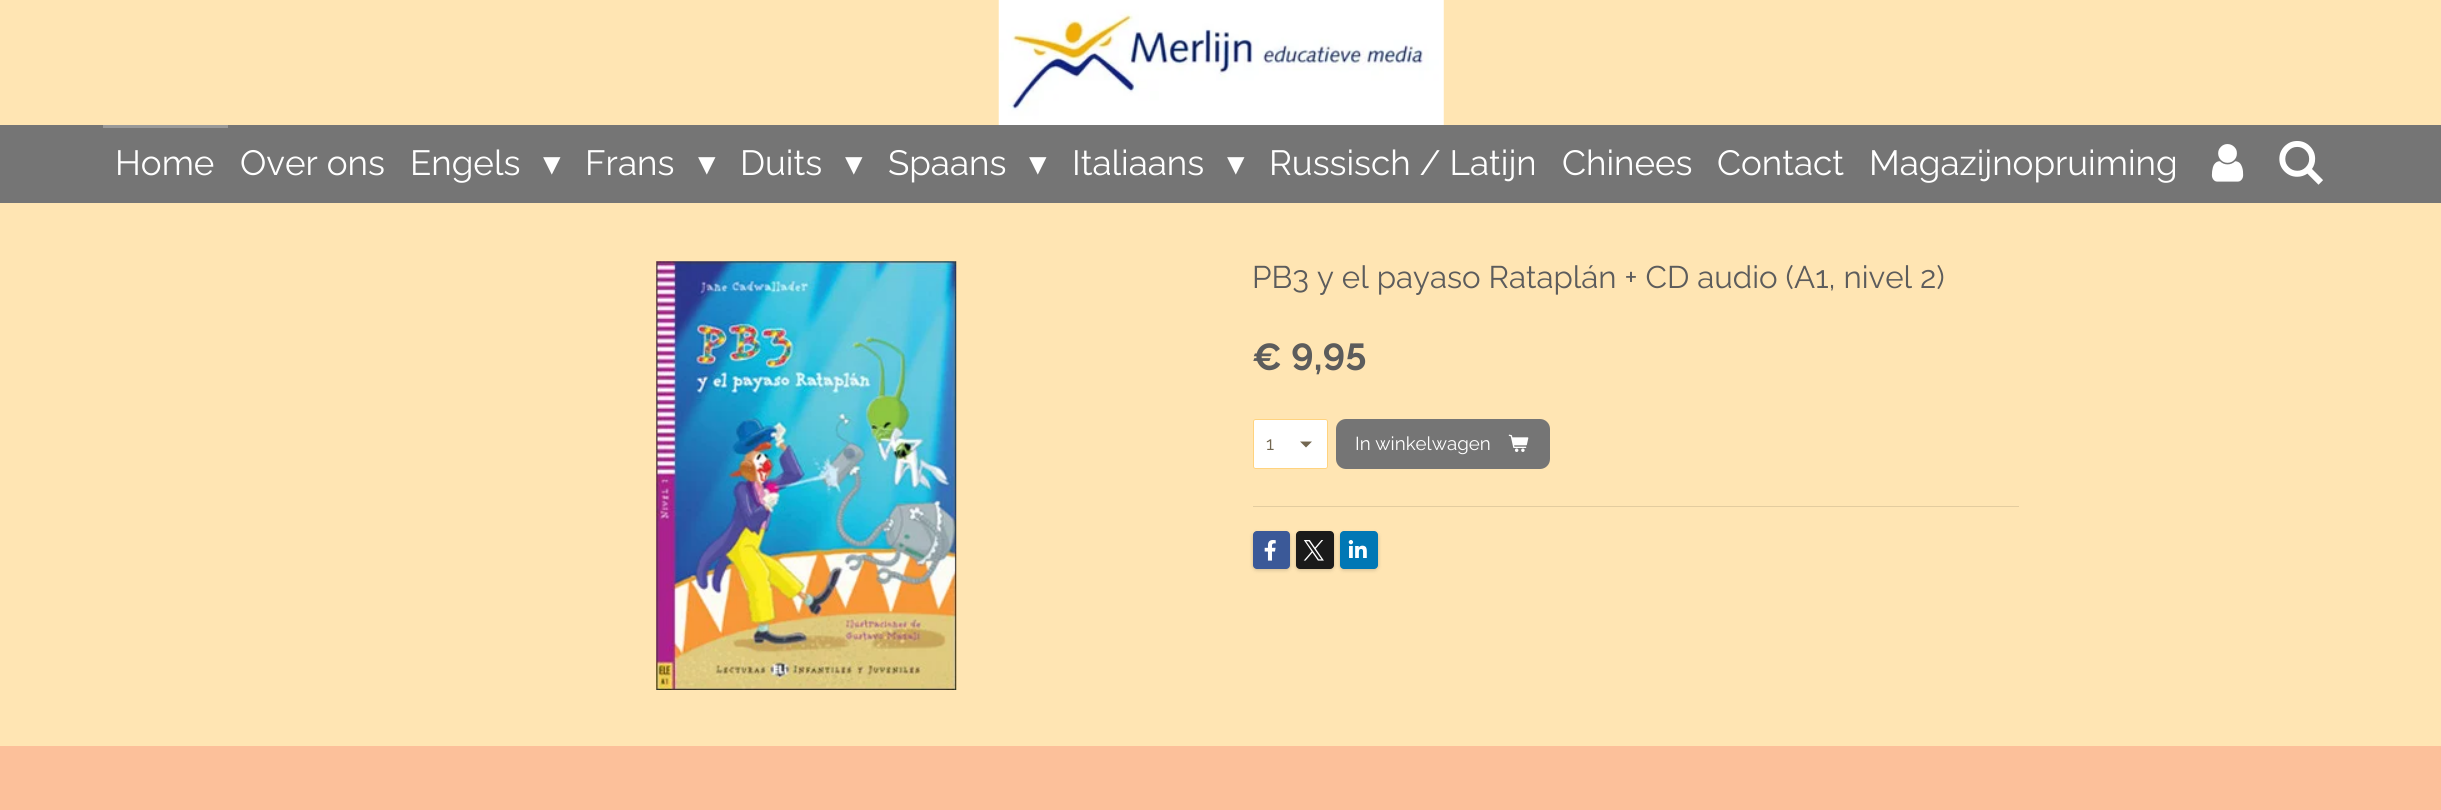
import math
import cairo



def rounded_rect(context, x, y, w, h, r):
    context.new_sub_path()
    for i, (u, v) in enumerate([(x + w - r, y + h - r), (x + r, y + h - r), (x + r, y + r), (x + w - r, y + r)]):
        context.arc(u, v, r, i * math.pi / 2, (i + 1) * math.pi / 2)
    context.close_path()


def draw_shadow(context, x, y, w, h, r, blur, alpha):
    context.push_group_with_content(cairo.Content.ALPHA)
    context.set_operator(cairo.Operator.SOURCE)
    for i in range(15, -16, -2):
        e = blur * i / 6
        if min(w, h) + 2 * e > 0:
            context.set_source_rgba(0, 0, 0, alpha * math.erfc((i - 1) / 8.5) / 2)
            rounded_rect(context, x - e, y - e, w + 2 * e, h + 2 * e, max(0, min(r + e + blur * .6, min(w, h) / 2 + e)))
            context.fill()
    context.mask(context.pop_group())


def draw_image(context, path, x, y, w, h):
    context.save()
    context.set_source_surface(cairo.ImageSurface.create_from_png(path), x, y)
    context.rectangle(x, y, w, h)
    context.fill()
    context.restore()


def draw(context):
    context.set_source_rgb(1, 229 / 255, 179 / 255)
    context.paint()
    draw_image(context, "images/1.png", 998, 0, 446, 125)
    context.set_source_rgb(117 / 255, 117 / 255, 117 / 255)
    context.rectangle(0, 125, 2441, 78)
    context.fill()
    context.set_source_rgb(153 / 255, 153 / 255, 153 / 255)
    context.rectangle(103, 125, 125, 3)
    context.fill()
    draw_image(context, "images/2.png", 2211, 144, 33, 38)
    draw_image(context, "images/3.png", 2279, 141, 44, 44)
    draw_image(context, "images/4.png", 656, 261, 301, 429)
    context.set_source_rgb(1, 1, 1)
    rounded_rect(context, 1253, 419, 75, 50, 2.5)
    context.fill()
    context.set_source_rgb(115 / 255, 103 / 255, 81 / 255)
    context.new_path()
    context.move_to(1306, 447.5)
    context.line_to(1300, 441.5)
    context.line_to(1312, 441.5)
    context.close_path()
    context.fill()
    rounded_rect(context, 1253.5, 419.5, 74, 49, 2)
    context.set_source_rgba(1, 168 / 255, 0, 0.5)
    context.set_line_width(1)
    context.stroke()
    context.set_source_rgb(117 / 255, 117 / 255, 117 / 255)
    rounded_rect(context, 1336, 419, 214, 50, 10)
    context.fill()
    draw_image(context, "images/5.png", 1508, 434, 21, 18)
    context.set_source_rgb(227 / 255, 204 / 255, 159 / 255)
    context.rectangle(1253, 506, 766, 1)
    context.fill()
    context.set_source_rgb(0, 0, 0)
    draw_shadow(context, 1253, 533, 37, 37, 4, 2, 0.2)
    context.set_source_rgb(59 / 255, 89 / 255, 152 / 255)
    rounded_rect(context, 1253, 531, 37, 38, 4)
    context.fill()
    draw_image(context, "images/6.png", 1264, 540, 12, 21)
    context.set_source_rgb(0, 0, 0)
    draw_shadow(context, 1296, 533, 38, 37, 4, 2, 0.2)
    context.set_source_rgb(26 / 255, 26 / 255, 26 / 255)
    rounded_rect(context, 1296, 531, 38, 38, 4)
    context.fill()
    draw_image(context, "images/7.png", 1303, 540, 21, 21)
    context.set_source_rgb(0, 0, 0)
    draw_shadow(context, 1340, 533, 38, 37, 4, 2, 0.2)
    context.set_source_rgb(0, 119 / 255, 181 / 255)
    rounded_rect(context, 1340, 531, 38, 38, 4)
    context.fill()
    draw_image(context, "images/8.png", 1348, 540, 19, 18)
    context.set_source_rgb(252 / 255, 192 / 255, 154 / 255)
    context.rectangle(0, 746, 2441, 64)
    context.fill()
    context.select_font_face("Raleway")
    context.set_font_size(35)
    context.set_source_rgb(1, 1, 1)
    context.move_to(115, 175)
    context.show_text("Home")
    context.move_to(240, 175)
    context.show_text("Over ons")
    context.move_to(410, 175)
    context.show_text("Engels")
    context.select_font_face("DejaVu Sans")
    context.move_to(543, 175)
    context.show_text("▾")
    context.select_font_face("Raleway")
    context.move_to(585, 175)
    context.show_text("Frans")
    context.select_font_face("DejaVu Sans")
    context.move_to(698, 175)
    context.show_text("▾")
    context.select_font_face("Raleway")
    context.move_to(740, 175)
    context.show_text("Duits")
    context.select_font_face("DejaVu Sans")
    context.move_to(845, 175)
    context.show_text("▾")
    context.select_font_face("Raleway")
    context.move_to(888, 175)
    context.show_text("Spaans")
    context.select_font_face("DejaVu Sans")
    context.move_to(1029, 175)
    context.show_text("▾")
    context.select_font_face("Raleway")
    context.move_to(1072, 175)
    context.show_text("Italiaans")
    context.select_font_face("DejaVu Sans")
    context.move_to(1227, 175)
    context.show_text("▾")
    context.select_font_face("Raleway")
    context.move_to(1269, 175)
    context.show_text("Russisch / Latijn")
    context.move_to(1562, 175)
    context.show_text("Chinees")
    context.move_to(1717, 175)
    context.show_text("Contact")
    context.move_to(1869, 175)
    context.show_text("Magazijnopruiming")
    context.set_font_size(31.25)
    context.set_source_rgb(92 / 255, 92 / 255, 92 / 255)
    context.move_to(1252, 288)
    context.show_text("PB3 y el payaso Rataplán + CD audio (A1, nivel 2)")
    context.select_font_face("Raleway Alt", cairo.FontSlant.NORMAL, cairo.FontWeight.BOLD)
    context.set_font_size(37.5)
    context.move_to(1252, 370)
    context.show_text("€ 9,95")
    context.select_font_face("Raleway")
    context.set_font_size(18.75)
    context.set_source_rgb(115 / 255, 103 / 255, 81 / 255)
    context.move_to(1266, 450)
    context.show_text("1")
    context.set_source_rgb(1, 1, 1)
    context.move_to(1355, 450)
    context.show_text("In winkelwagen")


surface = cairo.ImageSurface(cairo.Format.RGB24, 2441, 810)
context = cairo.Context(surface)
options = cairo.FontOptions()
options.set_hint_metrics(cairo.HintMetrics.OFF)
options.set_hint_style(cairo.HintStyle.NONE)
context.set_font_options(options)
context.set_miter_limit(4)
draw(context)
surface.write_to_png("out.png")
